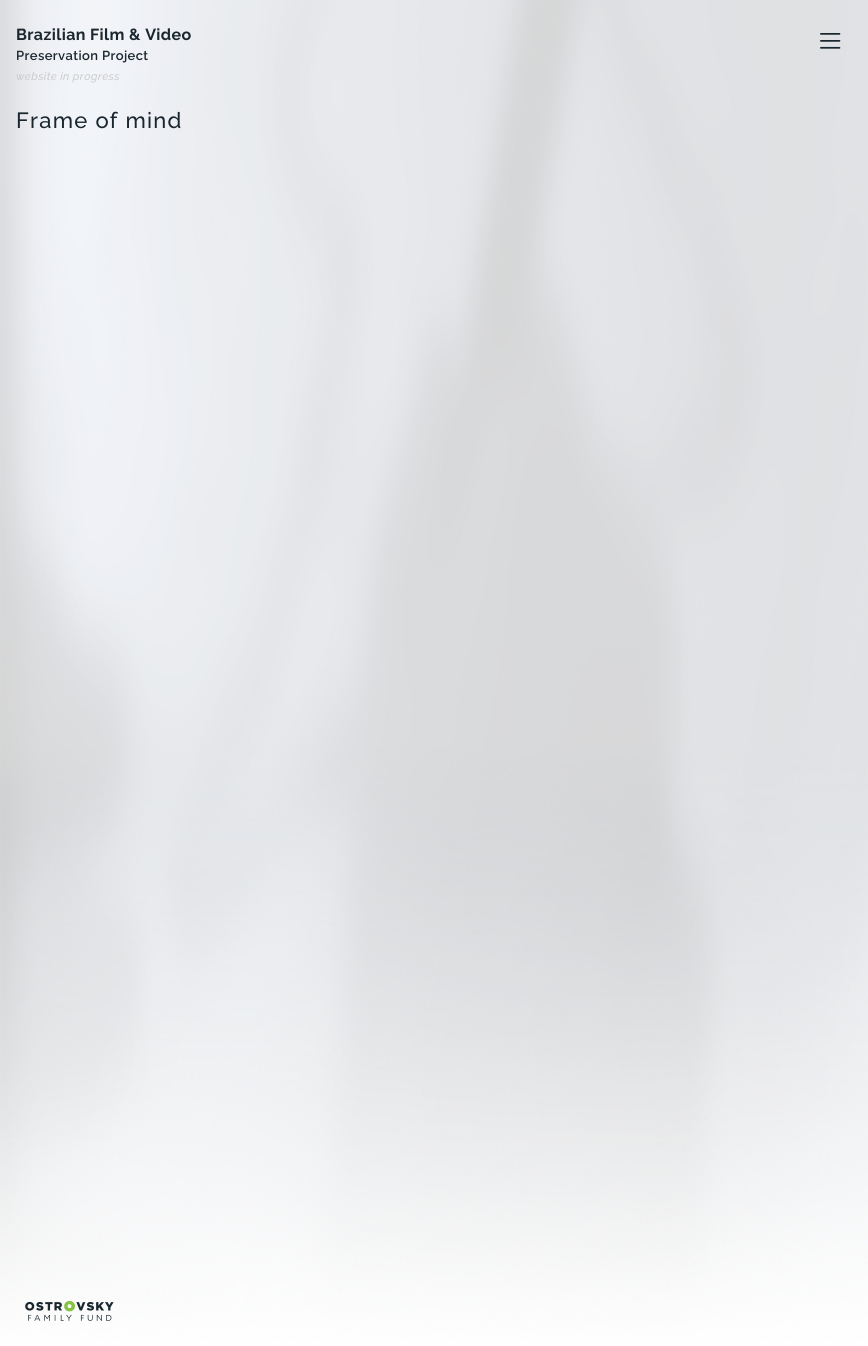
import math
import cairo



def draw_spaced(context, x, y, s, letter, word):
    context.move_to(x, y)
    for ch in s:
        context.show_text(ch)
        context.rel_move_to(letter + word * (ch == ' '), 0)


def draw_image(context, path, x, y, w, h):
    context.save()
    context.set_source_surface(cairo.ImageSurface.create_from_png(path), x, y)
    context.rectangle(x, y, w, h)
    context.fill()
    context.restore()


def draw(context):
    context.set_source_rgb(1, 1, 1)
    context.paint()
    draw_image(context, "images/1.png", 0, 0, 868, 1346)
    draw_image(context, "images/2.png", 820, 33, 21, 16)
    draw_image(context, "images/3.png", 25, 1301, 89, 20)
    context.select_font_face("Raleway", cairo.FontSlant.NORMAL, cairo.FontWeight.BOLD)
    context.set_font_size(16)
    context.set_source_rgb(26 / 255, 39 / 255, 46 / 255)
    draw_spaced(context, 16, 40, "Brazilian Film & Video", 0.4, 0)
    context.select_font_face("Raleway SemiBold")
    context.set_font_size(13)
    draw_spaced(context, 16, 60, "Preservation Project", 0.4, 0)
    context.select_font_face("Raleway Medium", cairo.FontSlant.ITALIC)
    context.set_font_size(11)
    context.set_source_rgb(204 / 255, 204 / 255, 204 / 255)
    draw_spaced(context, 16, 80, "website in progress", 0.4, 0)
    context.select_font_face("Raleway Medium")
    context.set_font_size(22)
    context.set_source_rgb(26 / 255, 39 / 255, 46 / 255)
    draw_spaced(context, 16, 128, "Frame of mind", 1.25, 0)


surface = cairo.ImageSurface(cairo.Format.RGB24, 868, 1346)
context = cairo.Context(surface)
options = cairo.FontOptions()
options.set_hint_metrics(cairo.HintMetrics.OFF)
options.set_hint_style(cairo.HintStyle.NONE)
context.set_font_options(options)
context.set_miter_limit(4)
draw(context)
surface.write_to_png("out.png")
